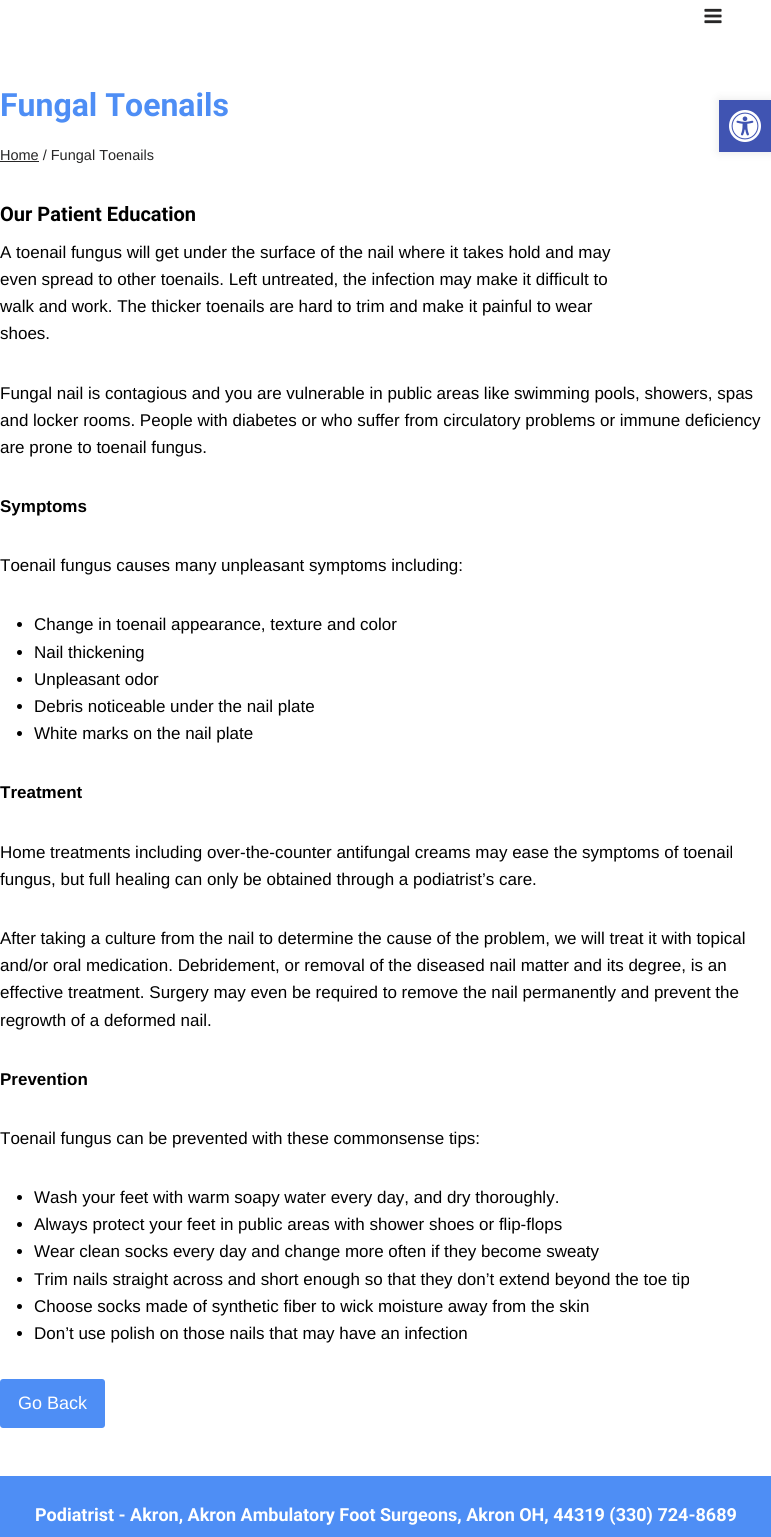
import math
import cairo



def rounded_rect(context, x, y, w, h, r):
    context.new_sub_path()
    for i, (u, v) in enumerate([(x + w - r, y + h - r), (x + r, y + h - r), (x + r, y + r), (x + w - r, y + r)]):
        context.arc(u, v, r, i * math.pi / 2, (i + 1) * math.pi / 2)
    context.close_path()


def draw_shadow(context, x, y, w, h, r, blur, alpha):
    context.push_group_with_content(cairo.Content.ALPHA)
    context.set_operator(cairo.Operator.SOURCE)
    for i in range(15, -16, -2):
        e = blur * i / 6
        if min(w, h) + 2 * e > 0:
            context.set_source_rgba(0, 0, 0, alpha * math.erfc((i - 1) / 8.5) / 2)
            rounded_rect(context, x - e, y - e, w + 2 * e, h + 2 * e, max(0, min(r + e + blur * .6, min(w, h) / 2 + e)))
            context.fill()
    context.mask(context.pop_group())


def draw_image(context, path, x, y, w, h):
    context.save()
    context.set_source_surface(cairo.ImageSurface.create_from_png(path), x, y)
    context.rectangle(x, y, w, h)
    context.fill()
    context.restore()


def draw(context):
    context.set_source_rgb(1, 1, 1)
    context.paint()
    context.set_source_rgb(0, 0, 0)
    draw_shadow(context, 719, 100, 52, 52, 0, 5, 0.1)
    context.set_source_rgb(64 / 255, 84 / 255, 178 / 255)
    context.rectangle(719, 100, 52, 52)
    context.fill()
    draw_image(context, "images/1.png", 729, 110, 32, 32)
    draw_image(context, "images/2.png", 704, 8, 18, 16)
    context.set_source_rgb(39 / 255, 38 / 255, 38 / 255)
    context.rectangle(0, 161, 39, 1)
    context.fill()
    context.set_source_rgb(0, 0, 0)
    context.arc(19.5, 624.5, 2.5, 0, 2 * math.pi)
    context.fill()
    context.arc(19.5, 652.5, 2.5, 0, 2 * math.pi)
    context.fill()
    context.arc(19.5, 679.5, 2.5, 0, 2 * math.pi)
    context.fill()
    context.arc(19.5, 706.5, 2.5, 0, 2 * math.pi)
    context.fill()
    context.arc(19.5, 733.5, 2.5, 0, 2 * math.pi)
    context.fill()
    context.arc(19.5, 1197.5, 2.5, 0, 2 * math.pi)
    context.fill()
    context.arc(19.5, 1224.5, 2.5, 0, 2 * math.pi)
    context.fill()
    context.arc(19.5, 1251.5, 2.5, 0, 2 * math.pi)
    context.fill()
    context.arc(19.5, 1279.5, 2.5, 0, 2 * math.pi)
    context.fill()
    context.arc(19.5, 1306.5, 2.5, 0, 2 * math.pi)
    context.fill()
    context.arc(19.5, 1333.5, 2.5, 0, 2 * math.pi)
    context.fill()
    context.set_source_rgb(78 / 255, 142 / 255, 245 / 255)
    rounded_rect(context, 1, 1380, 103, 47, 2)
    context.fill_preserve()
    context.stroke()
    context.rectangle(0, 1476, 771, 61)
    context.fill()
    context.select_font_face("Roboto", cairo.FontSlant.NORMAL, cairo.FontWeight.BOLD)
    context.set_font_size(32)
    context.move_to(0, 116)
    context.show_text("Fungal Toenails")
    context.select_font_face("Liberation Sans")
    context.set_font_size(14.5)
    context.set_source_rgb(39 / 255, 38 / 255, 38 / 255)
    context.move_to(0, 160)
    context.show_text("Home / Fungal Toenails")
    context.select_font_face("Roboto", cairo.FontSlant.NORMAL, cairo.FontWeight.BOLD)
    context.set_font_size(20)
    context.set_source_rgb(0, 0, 0)
    context.move_to(0, 221)
    context.show_text("Our Patient Education")
    context.select_font_face("Liberation Sans")
    context.set_font_size(17)
    context.move_to(0, 258)
    context.show_text("A toenail fungus will get under the surface of the nail where it takes hold and may")
    context.move_to(0, 285)
    context.show_text("even spread to other toenails. Left untreated, the infection may make it difficult to")
    context.move_to(0, 312)
    context.show_text("walk and work. The thicker toenails are hard to trim and make it painful to wear")
    context.move_to(0, 339)
    context.show_text("shoes.")
    context.move_to(0, 399)
    context.show_text("Fungal nail is contagious and you are vulnerable in public areas like swimming pools, showers, spas")
    context.move_to(0, 426)
    context.show_text("and locker rooms. People with diabetes or who suffer from circulatory problems or immune deficiency")
    context.move_to(0, 453)
    context.show_text("are prone to toenail fungus.")
    context.select_font_face("Liberation Sans", cairo.FontSlant.NORMAL, cairo.FontWeight.BOLD)
    context.move_to(0, 512)
    context.show_text("Symptoms")
    context.select_font_face("Liberation Sans")
    context.move_to(0, 571)
    context.show_text("Toenail fungus causes many unpleasant symptoms including:")
    context.move_to(34, 630)
    context.show_text("Change in toenail appearance, texture and color")
    context.move_to(34, 658)
    context.show_text("Nail thickening")
    context.move_to(34, 685)
    context.show_text("Unpleasant odor")
    context.move_to(34, 712)
    context.show_text("Debris noticeable under the nail plate")
    context.move_to(34, 739)
    context.show_text("White marks on the nail plate")
    context.select_font_face("Liberation Sans", cairo.FontSlant.NORMAL, cairo.FontWeight.BOLD)
    context.move_to(0, 798)
    context.show_text("Treatment")
    context.select_font_face("Liberation Sans")
    context.move_to(0, 858)
    context.show_text("Home treatments including over-the-counter antifungal creams may ease the symptoms of toenail")
    context.move_to(0, 885)
    context.show_text("fungus, but full healing can only be obtained through a podiatrist’s care.")
    context.move_to(0, 944)
    context.show_text("After taking a culture from the nail to determine the cause of the problem, we will treat it with topical")
    context.move_to(0, 971)
    context.show_text("and/or oral medication. Debridement, or removal of the diseased nail matter and its degree, is an")
    context.move_to(0, 998)
    context.show_text("effective treatment. Surgery may even be required to remove the nail permanently and prevent the")
    context.move_to(0, 1026)
    context.show_text("regrowth of a deformed nail.")
    context.select_font_face("Liberation Sans", cairo.FontSlant.NORMAL, cairo.FontWeight.BOLD)
    context.move_to(0, 1085)
    context.show_text("Prevention")
    context.select_font_face("Liberation Sans")
    context.move_to(0, 1144)
    context.show_text("Toenail fungus can be prevented with these commonsense tips:")
    context.move_to(34, 1203)
    context.show_text("Wash your feet with warm soapy water every day, and dry thoroughly.")
    context.move_to(34, 1230)
    context.show_text("Always protect your feet in public areas with shower shoes or flip-flops")
    context.move_to(34, 1257)
    context.show_text("Wear clean socks every day and change more often if they become sweaty")
    context.move_to(34, 1285)
    context.show_text("Trim nails straight across and short enough so that they don’t extend beyond the toe tip")
    context.move_to(34, 1312)
    context.show_text("Choose socks made of synthetic fiber to wick moisture away from the skin")
    context.move_to(34, 1339)
    context.show_text("Don’t use polish on those nails that may have an infection")
    context.set_font_size(18)
    context.set_source_rgb(1, 1, 1)
    context.move_to(18, 1409)
    context.show_text("Go Back")
    context.select_font_face("Roboto", cairo.FontSlant.NORMAL, cairo.FontWeight.BOLD)
    context.move_to(35, 1521)
    context.show_text("Podiatrist - Akron, Akron Ambulatory Foot Surgeons, Akron OH, 44319 (330) 724-8689")


surface = cairo.ImageSurface(cairo.Format.RGB24, 771, 1537)
context = cairo.Context(surface)
options = cairo.FontOptions()
options.set_hint_metrics(cairo.HintMetrics.OFF)
options.set_hint_style(cairo.HintStyle.NONE)
context.set_font_options(options)
context.set_miter_limit(4)
draw(context)
surface.write_to_png("out.png")
